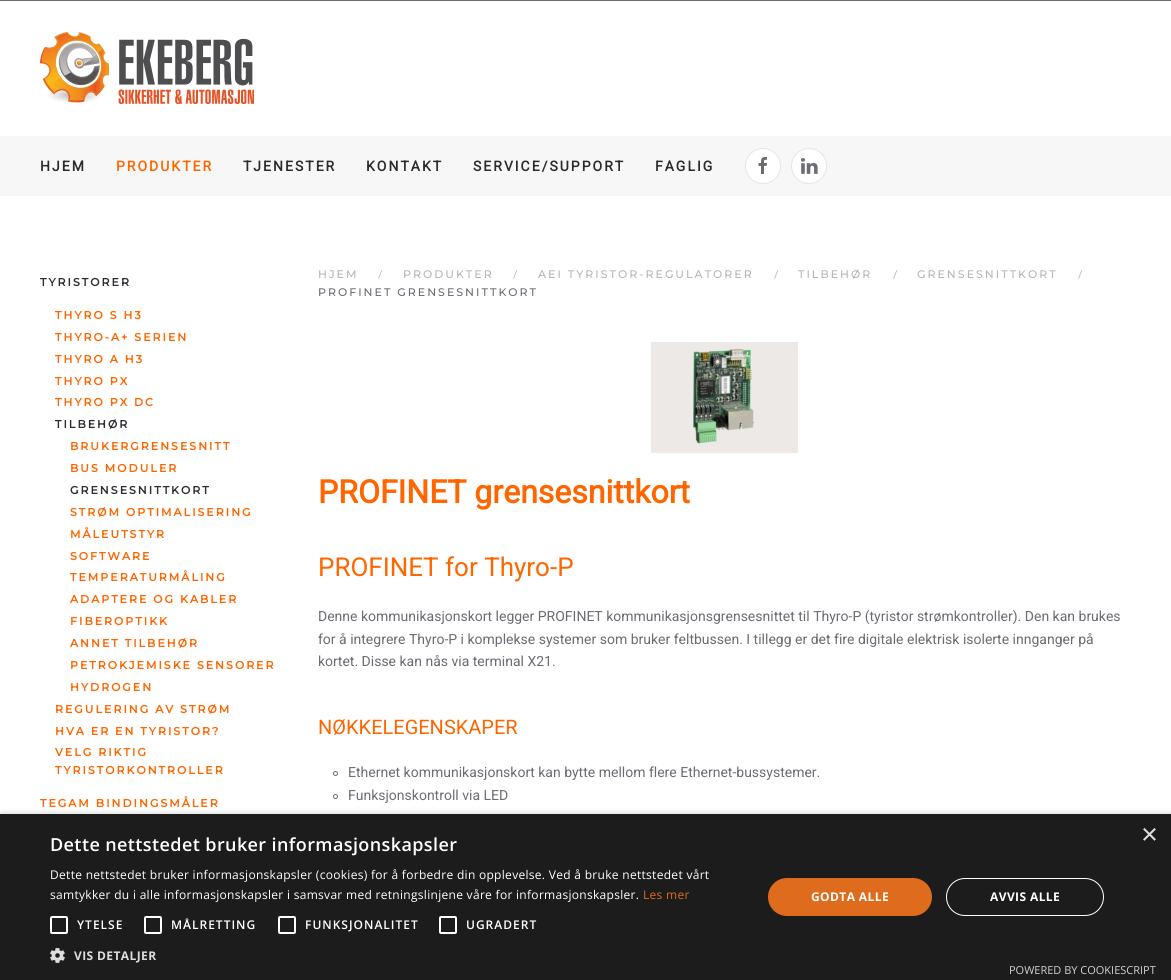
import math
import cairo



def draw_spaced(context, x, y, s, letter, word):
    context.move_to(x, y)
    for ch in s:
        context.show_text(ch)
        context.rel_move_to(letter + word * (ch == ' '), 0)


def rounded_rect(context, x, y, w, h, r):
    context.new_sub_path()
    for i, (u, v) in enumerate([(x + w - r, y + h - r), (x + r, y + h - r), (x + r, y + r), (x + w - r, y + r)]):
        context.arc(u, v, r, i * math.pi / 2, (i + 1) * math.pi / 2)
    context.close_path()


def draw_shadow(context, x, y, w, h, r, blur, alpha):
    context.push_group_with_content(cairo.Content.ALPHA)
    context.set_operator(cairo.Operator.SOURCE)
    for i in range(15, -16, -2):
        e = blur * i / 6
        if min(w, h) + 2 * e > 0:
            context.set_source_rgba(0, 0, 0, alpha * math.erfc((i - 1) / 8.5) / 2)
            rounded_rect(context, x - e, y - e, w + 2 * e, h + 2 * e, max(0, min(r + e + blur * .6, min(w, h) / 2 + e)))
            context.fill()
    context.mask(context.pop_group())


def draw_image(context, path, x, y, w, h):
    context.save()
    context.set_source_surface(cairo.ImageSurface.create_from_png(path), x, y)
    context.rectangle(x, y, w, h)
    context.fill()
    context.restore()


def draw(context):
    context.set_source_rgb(1, 1, 1)
    context.paint()
    context.set_source_rgb(110 / 255, 110 / 255, 110 / 255)
    context.rectangle(0, 0, 1171, 1)
    context.fill()
    draw_image(context, "images/1.png", 40, 32, 214, 72)
    context.set_source_rgb(247 / 255, 247 / 255, 247 / 255)
    context.rectangle(0, 136, 1171, 60)
    context.fill()
    context.set_source_rgb(1, 1, 1)
    context.arc(763, 166, 17.5, 0, 2 * math.pi)
    context.fill_preserve()
    context.set_source_rgb(229 / 255, 229 / 255, 231 / 255)
    context.set_line_width(1)
    context.stroke()
    draw_image(context, "images/2.png", 758, 157, 9, 17)
    context.set_source_rgb(1, 1, 1)
    context.arc(809, 166, 17.5, 0, 2 * math.pi)
    context.fill_preserve()
    context.set_source_rgb(229 / 255, 229 / 255, 231 / 255)
    context.stroke()
    draw_image(context, "images/3.png", 801, 158, 17, 16)
    draw_image(context, "images/4.png", 651, 342, 147, 111)
    context.arc(335.5, 773.5, 2, 0, 2 * math.pi)
    context.set_source_rgb(108 / 255, 109 / 255, 116 / 255)
    context.stroke()
    context.arc(335.5, 796.5, 2, 0, 2 * math.pi)
    context.stroke()
    context.set_source_rgb(0, 0, 0)
    draw_shadow(context, 1, 816, 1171, 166, 0, 4, 0.35)
    context.set_source_rgb(28 / 255, 28 / 255, 28 / 255)
    context.rectangle(0, 814, 1171, 166)
    context.fill()
    rounded_rect(context, 51, 917, 16, 16, 1)
    context.set_source_rgb(1, 1, 1)
    context.set_line_width(2)
    context.stroke()
    rounded_rect(context, 145, 917, 16, 16, 1)
    context.stroke()
    rounded_rect(context, 279, 917, 16, 16, 1)
    context.stroke()
    rounded_rect(context, 440, 917, 16, 16, 1)
    context.stroke()
    draw_image(context, "images/5.png", 50, 948, 15, 15)
    context.set_source_rgb(223 / 255, 107 / 255, 29 / 255)
    rounded_rect(context, 768, 878, 164, 38, 19)
    context.fill()
    rounded_rect(context, 946.5, 878.5, 157, 37, 18.5)
    context.set_source_rgb(1, 1, 1)
    context.set_line_width(1)
    context.stroke()
    context.select_font_face("Roboto", cairo.FontSlant.NORMAL, cairo.FontWeight.BOLD)
    context.set_font_size(14)
    context.set_source_rgb(43 / 255, 43 / 255, 44 / 255)
    draw_spaced(context, 40, 171, "HJEM", 2, 0)
    context.set_source_rgb(1, 102 / 255, 0)
    draw_spaced(context, 116, 171, "PRODUKTER", 2, 0)
    context.set_source_rgb(43 / 255, 43 / 255, 44 / 255)
    draw_spaced(context, 243, 171, "TJENESTER", 2, 0)
    draw_spaced(context, 366, 171, "KONTAKT", 2, 0)
    draw_spaced(context, 473, 171, "SERVICE/SUPPORT", 2, 0)
    draw_spaced(context, 655, 171, "FAGLIG", 2, 0)
    context.select_font_face("Montserrat", cairo.FontSlant.NORMAL, cairo.FontWeight.BOLD)
    context.set_font_size(11)
    context.set_source_rgb(45 / 255, 46 / 255, 51 / 255)
    draw_spaced(context, 40, 286, "TYRISTORER", 2, 0)
    context.set_source_rgb(1, 102 / 255, 0)
    draw_spaced(context, 55, 319, "THYRO S H3", 2, 0)
    draw_spaced(context, 55, 341, "THYRO-A+ SERIEN", 2, 0)
    draw_spaced(context, 55, 363, "THYRO A H3", 2, 0)
    draw_spaced(context, 55, 385, "THYRO PX", 2, 0)
    draw_spaced(context, 55, 406, "THYRO PX DC", 2, 0)
    context.set_source_rgb(45 / 255, 46 / 255, 51 / 255)
    draw_spaced(context, 55, 428, "TILBEHØR", 2, 0)
    context.set_source_rgb(1, 102 / 255, 0)
    draw_spaced(context, 70, 450, "BRUKERGRENSESNITT", 2, 0)
    draw_spaced(context, 70, 472, "BUS MODULER", 2, 0)
    context.set_source_rgb(45 / 255, 46 / 255, 51 / 255)
    draw_spaced(context, 70, 494, "GRENSESNITTKORT", 2, 0)
    context.set_source_rgb(1, 102 / 255, 0)
    draw_spaced(context, 70, 516, "STRØM OPTIMALISERING", 2, 0)
    draw_spaced(context, 70, 538, "MÅLEUTSTYR", 2, 0)
    draw_spaced(context, 70, 560, "SOFTWARE", 2, 0)
    draw_spaced(context, 70, 581, "TEMPERATURMÅLING", 2, 0)
    draw_spaced(context, 70, 603, "ADAPTERE OG KABLER", 2, 0)
    draw_spaced(context, 70, 625, "FIBEROPTIKK", 2, 0)
    draw_spaced(context, 70, 647, "ANNET TILBEHØR", 2, 0)
    draw_spaced(context, 70, 669, "PETROKJEMISKE SENSORER", 2, 0)
    draw_spaced(context, 70, 691, "HYDROGEN", 2, 0)
    draw_spaced(context, 55, 713, "REGULERING AV STRØM", 2, 0)
    draw_spaced(context, 55, 735, "HVA ER EN TYRISTOR?", 2, 0)
    draw_spaced(context, 55, 756, "VELG RIKTIG", 2, 0)
    draw_spaced(context, 55, 774, "TYRISTORKONTROLLER", 2, 0)
    draw_spaced(context, 40, 807, "TEGAM BINDINGSMÅLER", 2, 0)
    context.select_font_face("Montserrat Thin")
    context.set_source_rgb(180 / 255, 181 / 255, 186 / 255)
    draw_spaced(context, 318, 278, "HJEM", 2, 0)
    context.select_font_face("Roboto")
    context.move_to(774, 278)
    context.show_text("/")
    context.select_font_face("Montserrat Thin")
    draw_spaced(context, 798, 278, "TILBEHØR", 2, 0)
    context.select_font_face("Roboto")
    context.move_to(1078, 278)
    context.show_text("/")
    context.select_font_face("Montserrat Thin")
    context.set_source_rgb(108 / 255, 109 / 255, 116 / 255)
    draw_spaced(context, 318, 296, "PROFINET GRENSESNITTKORT", 2, 0)
    context.select_font_face("Roboto")
    context.set_source_rgb(180 / 255, 181 / 255, 186 / 255)
    context.move_to(378, 278)
    context.show_text("/")
    context.select_font_face("Montserrat Thin")
    draw_spaced(context, 403, 278, "PRODUKTER", 2, 0)
    context.select_font_face("Roboto")
    context.move_to(513, 278)
    context.show_text("/")
    context.select_font_face("Montserrat Thin")
    draw_spaced(context, 538, 278, "AEI TYRISTOR-REGULATORER", 2, 0)
    context.select_font_face("Roboto")
    context.move_to(893, 278)
    context.show_text("/")
    context.select_font_face("Montserrat Thin")
    draw_spaced(context, 917, 278, "GRENSESNITTKORT", 2, 0)
    context.select_font_face("Roboto", cairo.FontSlant.NORMAL, cairo.FontWeight.BOLD)
    context.set_font_size(32)
    context.set_source_rgb(1, 102 / 255, 0)
    context.move_to(318, 503)
    context.show_text("PROFINET grensesnittkort")
    context.select_font_face("Roboto")
    context.set_font_size(26)
    context.move_to(318, 576)
    context.show_text("PROFINET for Thyro-P")
    context.set_font_size(14)
    context.set_source_rgb(108 / 255, 109 / 255, 116 / 255)
    context.move_to(318, 621)
    context.show_text("Denne kommunikasjonskort legger PROFINET kommunikasjonsgrensesnittet til Thyro-P (tyristor strømkontroller). Den kan brukes")
    context.move_to(318, 644)
    context.show_text("for å integrere Thyro-P i komplekse systemer som bruker feltbussen. I tillegg er det fire digitale elektrisk isolerte innganger på")
    context.move_to(318, 666)
    context.show_text("kortet. Disse kan nås via terminal X21.")
    context.set_font_size(20)
    context.set_source_rgb(1, 102 / 255, 0)
    context.move_to(318, 734)
    context.show_text("NØKKELEGENSKAPER")
    context.set_font_size(14)
    context.set_source_rgb(108 / 255, 109 / 255, 116 / 255)
    context.move_to(348, 777)
    context.show_text("Ethernet kommunikasjonskort kan bytte mellom flere Ethernet-bussystemer.")
    context.move_to(348, 800)
    context.show_text("Funksjonskontroll via LED")
    context.select_font_face("Liberation Sans")
    context.set_font_size(29)
    context.set_source_rgb(221 / 255, 221 / 255, 221 / 255)
    context.move_to(1141, 844)
    context.show_text("×")
    context.select_font_face("Open Sans SemiBold")
    context.set_font_size(18)
    context.set_source_rgb(1, 1, 1)
    draw_spaced(context, 50, 851, "Dette nettstedet bruker informasjonskapsler", 0.4, 0)
    context.select_font_face("Open Sans")
    context.set_font_size(12)
    draw_spaced(context, 50, 879, "Dette nettstedet bruker informasjonskapsler (cookies) for å forbedre din opplevelse. Ved å bruke nettstedet vårt", 0.3, 0)
    draw_spaced(context, 50, 899, "samtykker du i alle informasjonskapsler i samsvar med retningslinjene våre for informasjonskapsler.", 0.3, 0)
    context.set_source_rgb(223 / 255, 107 / 255, 29 / 255)
    draw_spaced(context, 643, 899, "Les mer", 0.3, 0)
    context.select_font_face("Open Sans SemiBold")
    context.set_source_rgb(1, 1, 1)
    draw_spaced(context, 77, 929, "YTELSE", 1, 0)
    draw_spaced(context, 171, 929, "MÅLRETTING", 1, 0)
    draw_spaced(context, 305, 929, "FUNKSJONALITET", 1, 0)
    draw_spaced(context, 466, 929, "UGRADERT", 1, 0)
    context.select_font_face("Open Sans", cairo.FontSlant.NORMAL, cairo.FontWeight.BOLD)
    context.set_source_rgb(221 / 255, 221 / 255, 221 / 255)
    draw_spaced(context, 74, 960, "VIS DETALJER", 0.4, 0)
    context.set_source_rgb(1, 1, 1)
    draw_spaced(context, 811, 901, "GODTA ALLE", 0.4, 0)
    draw_spaced(context, 990, 901, "AVVIS ALLE", 0.4, 0)
    context.select_font_face("Open Sans")
    context.set_font_size(11)
    context.set_source_rgb(210 / 255, 210 / 255, 210 / 255)
    context.move_to(1009, 974)
    context.show_text("POWERED BY COOKIESCRIPT")


surface = cairo.ImageSurface(cairo.Format.RGB24, 1171, 980)
context = cairo.Context(surface)
options = cairo.FontOptions()
options.set_hint_metrics(cairo.HintMetrics.OFF)
options.set_hint_style(cairo.HintStyle.NONE)
context.set_font_options(options)
context.set_miter_limit(4)
draw(context)
surface.write_to_png("out.png")
